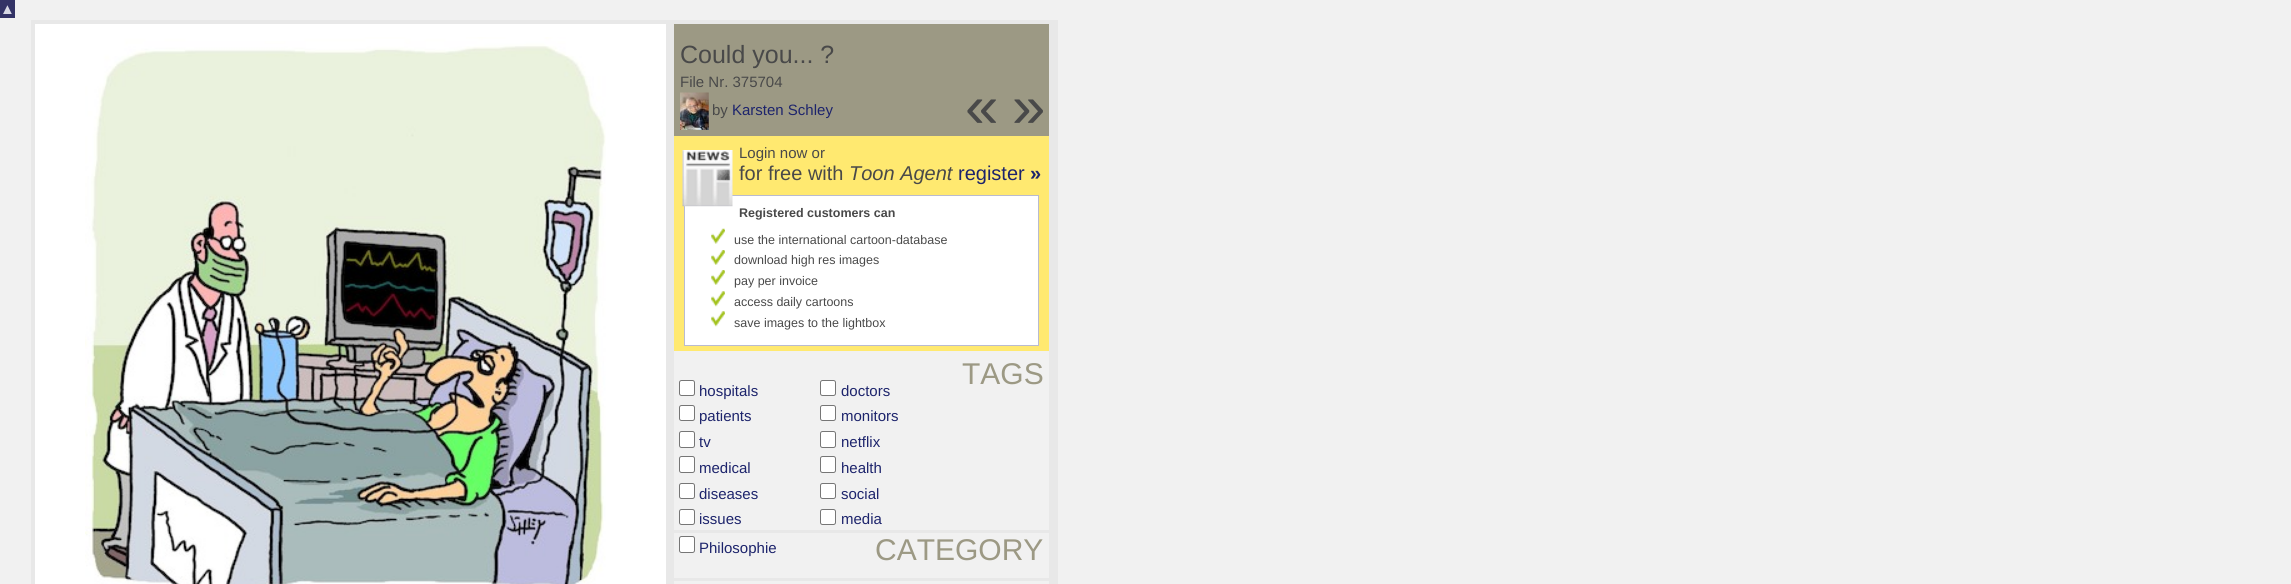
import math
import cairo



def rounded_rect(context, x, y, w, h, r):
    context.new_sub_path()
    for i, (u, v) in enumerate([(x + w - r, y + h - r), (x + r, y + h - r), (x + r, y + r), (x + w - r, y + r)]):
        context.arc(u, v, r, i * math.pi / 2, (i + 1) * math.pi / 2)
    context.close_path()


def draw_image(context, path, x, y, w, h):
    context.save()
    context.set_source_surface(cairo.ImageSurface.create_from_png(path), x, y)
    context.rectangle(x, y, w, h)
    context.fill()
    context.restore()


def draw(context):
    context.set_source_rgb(241 / 255, 241 / 255, 241 / 255)
    context.paint()
    context.set_source_rgb(51 / 255, 51 / 255, 102 / 255)
    context.rectangle(0, 0, 15, 18)
    context.fill()
    context.set_source_rgb(232 / 255, 232 / 255, 232 / 255)
    context.rectangle(31, 20, 1027, 564)
    context.fill()
    context.set_source_rgb(1, 1, 1)
    context.rectangle(35, 24, 631, 560)
    context.fill()
    draw_image(context, "images/1.png", 85, 37, 521, 547)
    context.set_source_rgb(156 / 255, 153 / 255, 132 / 255)
    context.rectangle(674, 24, 375, 112)
    context.fill()
    draw_image(context, "images/2.png", 680, 92, 29, 38)
    context.set_source_rgb(1, 233 / 255, 112 / 255)
    context.rectangle(674, 136, 375, 215)
    context.fill()
    context.set_source_rgb(1, 1, 1)
    context.rectangle(684.5, 195.5, 354, 150)
    context.fill_preserve()
    context.set_source_rgb(185 / 255, 187 / 255, 208 / 255)
    context.set_line_width(1)
    context.stroke()
    draw_image(context, "images/3.png", 682, 150, 51, 57)
    draw_image(context, "images/4.png", 711, 228, 14, 16)
    draw_image(context, "images/5.png", 711, 250, 14, 15)
    draw_image(context, "images/5.png", 711, 270, 14, 15)
    draw_image(context, "images/6.png", 711, 291, 14, 16)
    draw_image(context, "images/7.png", 711, 311, 14, 16)
    context.set_source_rgb(241 / 255, 241 / 255, 241 / 255)
    context.rectangle(674, 351, 375, 233)
    context.fill()
    context.set_source_rgb(1, 1, 1)
    rounded_rect(context, 679.5, 380.5, 15, 15, 2)
    context.fill_preserve()
    context.set_source_rgb(118 / 255, 118 / 255, 118 / 255)
    context.stroke()
    context.set_source_rgb(1, 1, 1)
    rounded_rect(context, 820.5, 380.5, 15, 15, 2)
    context.fill_preserve()
    context.set_source_rgb(118 / 255, 118 / 255, 118 / 255)
    context.stroke()
    context.set_source_rgb(1, 1, 1)
    rounded_rect(context, 679.5, 405.5, 15, 15, 2)
    context.fill_preserve()
    context.set_source_rgb(118 / 255, 118 / 255, 118 / 255)
    context.stroke()
    context.set_source_rgb(1, 1, 1)
    rounded_rect(context, 820.5, 405.5, 15, 15, 2)
    context.fill_preserve()
    context.set_source_rgb(118 / 255, 118 / 255, 118 / 255)
    context.stroke()
    context.set_source_rgb(1, 1, 1)
    rounded_rect(context, 679.5, 431.5, 15, 16, 2)
    context.fill_preserve()
    context.set_source_rgb(118 / 255, 118 / 255, 118 / 255)
    context.stroke()
    context.set_source_rgb(1, 1, 1)
    rounded_rect(context, 820.5, 431.5, 15, 16, 2)
    context.fill_preserve()
    context.set_source_rgb(118 / 255, 118 / 255, 118 / 255)
    context.stroke()
    context.set_source_rgb(1, 1, 1)
    rounded_rect(context, 679.5, 456.5, 15, 16, 2)
    context.fill_preserve()
    context.set_source_rgb(118 / 255, 118 / 255, 118 / 255)
    context.stroke()
    context.set_source_rgb(1, 1, 1)
    rounded_rect(context, 820.5, 456.5, 15, 16, 2)
    context.fill_preserve()
    context.set_source_rgb(118 / 255, 118 / 255, 118 / 255)
    context.stroke()
    context.set_source_rgb(1, 1, 1)
    rounded_rect(context, 679.5, 483.5, 15, 15, 2)
    context.fill_preserve()
    context.set_source_rgb(118 / 255, 118 / 255, 118 / 255)
    context.stroke()
    context.set_source_rgb(1, 1, 1)
    rounded_rect(context, 820.5, 483.5, 15, 15, 2)
    context.fill_preserve()
    context.set_source_rgb(118 / 255, 118 / 255, 118 / 255)
    context.stroke()
    context.set_source_rgb(1, 1, 1)
    rounded_rect(context, 679.5, 509.5, 15, 15, 2)
    context.fill_preserve()
    context.set_source_rgb(118 / 255, 118 / 255, 118 / 255)
    context.stroke()
    context.set_source_rgb(1, 1, 1)
    rounded_rect(context, 820.5, 509.5, 15, 15, 2)
    context.fill_preserve()
    context.set_source_rgb(118 / 255, 118 / 255, 118 / 255)
    context.stroke()
    context.set_source_rgb(232 / 255, 232 / 255, 232 / 255)
    context.rectangle(674, 530, 375, 3)
    context.fill()
    context.set_source_rgb(1, 1, 1)
    rounded_rect(context, 679.5, 536.5, 15, 16, 2)
    context.fill_preserve()
    context.set_source_rgb(118 / 255, 118 / 255, 118 / 255)
    context.stroke()
    context.set_source_rgb(232 / 255, 232 / 255, 232 / 255)
    context.rectangle(674, 578, 375, 3)
    context.fill()
    context.select_font_face("Liberation Sans")
    context.set_font_size(15)
    context.set_source_rgb(216 / 255, 217 / 255, 229 / 255)
    context.move_to(0, 14)
    context.show_text("▲")
    context.set_font_size(25)
    context.set_source_rgb(73 / 255, 73 / 255, 73 / 255)
    context.move_to(680, 63)
    context.show_text("Could you... ?")
    context.set_font_size(15)
    context.move_to(680, 87)
    context.show_text("File Nr. 375704")
    context.move_to(712, 115)
    context.show_text("by")
    context.set_source_rgb(29 / 255, 36 / 255, 108 / 255)
    context.move_to(732, 115)
    context.show_text("Karsten Schley")
    context.set_font_size(60)
    context.set_source_rgb(73 / 255, 73 / 255, 73 / 255)
    context.move_to(965, 127)
    context.show_text("«")
    context.move_to(1012, 127)
    context.show_text("»")
    context.set_font_size(15)
    context.move_to(739, 158)
    context.show_text("Login now or")
    context.set_font_size(20)
    context.move_to(739, 180)
    context.show_text("for free with")
    context.select_font_face("Liberation Sans", cairo.FontSlant.ITALIC)
    context.move_to(849, 180)
    context.show_text("Toon Agent")
    context.select_font_face("Liberation Sans")
    context.set_source_rgb(29 / 255, 36 / 255, 108 / 255)
    context.move_to(958, 180)
    context.show_text("register")
    context.select_font_face("Liberation Sans", cairo.FontSlant.NORMAL, cairo.FontWeight.BOLD)
    context.move_to(1030, 180)
    context.show_text("»")
    context.set_font_size(12.5)
    context.set_source_rgb(73 / 255, 73 / 255, 73 / 255)
    context.move_to(739, 217)
    context.show_text("Registered customers can")
    context.select_font_face("Liberation Sans")
    context.move_to(734, 244)
    context.show_text("use the international cartoon-database")
    context.move_to(734, 264)
    context.show_text("download high res images")
    context.move_to(734, 285)
    context.show_text("pay per invoice")
    context.move_to(734, 306)
    context.show_text("access daily cartoons")
    context.move_to(734, 327)
    context.show_text("save images to the lightbox")
    context.set_font_size(30)
    context.set_source_rgb(156 / 255, 153 / 255, 132 / 255)
    context.move_to(962, 384)
    context.show_text("TAGS")
    context.set_font_size(15)
    context.set_source_rgb(29 / 255, 36 / 255, 108 / 255)
    context.move_to(699, 396)
    context.show_text("hospitals")
    context.move_to(841, 396)
    context.show_text("doctors")
    context.move_to(699, 421)
    context.show_text("patients")
    context.move_to(841, 421)
    context.show_text("monitors")
    context.move_to(699, 447)
    context.show_text("tv")
    context.move_to(841, 447)
    context.show_text("netflix")
    context.move_to(699, 473)
    context.show_text("medical")
    context.move_to(841, 473)
    context.show_text("health")
    context.move_to(699, 499)
    context.show_text("diseases")
    context.move_to(841, 499)
    context.show_text("social")
    context.move_to(699, 524)
    context.show_text("issues")
    context.move_to(841, 524)
    context.show_text("media")
    context.move_to(699, 553)
    context.show_text("Philosophie")
    context.set_font_size(30)
    context.set_source_rgb(156 / 255, 153 / 255, 132 / 255)
    context.move_to(875, 560)
    context.show_text("CATEGORY")


surface = cairo.ImageSurface(cairo.Format.RGB24, 2291, 584)
context = cairo.Context(surface)
options = cairo.FontOptions()
options.set_hint_metrics(cairo.HintMetrics.OFF)
options.set_hint_style(cairo.HintStyle.NONE)
context.set_font_options(options)
context.set_miter_limit(4)
draw(context)
surface.write_to_png("out.png")
